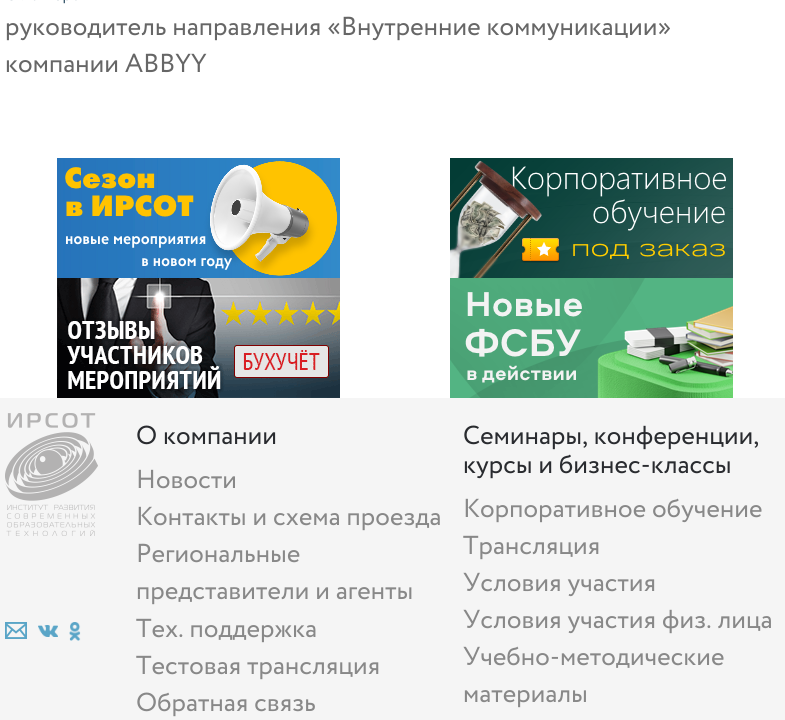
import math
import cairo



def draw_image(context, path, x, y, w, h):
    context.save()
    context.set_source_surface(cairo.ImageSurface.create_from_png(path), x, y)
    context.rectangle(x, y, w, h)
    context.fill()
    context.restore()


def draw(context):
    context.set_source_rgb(1, 1, 1)
    context.paint()
    draw_image(context, "images/1.png", 10, 0, 67, 4)
    draw_image(context, "images/2.png", 6, 16, 664, 25)
    draw_image(context, "images/3.png", 6, 53, 201, 20)
    draw_image(context, "images/4.png", 57, 158, 283, 120)
    draw_image(context, "images/5.png", 450, 158, 283, 120)
    draw_image(context, "images/6.png", 57, 278, 283, 120)
    draw_image(context, "images/7.png", 450, 278, 283, 120)
    context.set_source_rgb(245 / 255, 245 / 255, 245 / 255)
    context.rectangle(0, 398, 785, 322)
    context.fill()
    draw_image(context, "images/8.png", 5, 413, 93, 123)
    draw_image(context, "images/9.png", 5, 622, 22, 17)
    draw_image(context, "images/10.png", 38, 625, 20, 12)
    draw_image(context, "images/11.png", 69, 622, 12, 19)
    draw_image(context, "images/12.png", 137, 425, 139, 20)
    draw_image(context, "images/13.png", 138, 469, 97, 20)
    draw_image(context, "images/14.png", 138, 506, 302, 25)
    draw_image(context, "images/15.png", 138, 543, 162, 20)
    draw_image(context, "images/16.png", 137, 587, 275, 18)
    draw_image(context, "images/17.png", 136, 618, 180, 25)
    draw_image(context, "images/18.png", 136, 655, 243, 25)
    draw_image(context, "images/19.png", 137, 692, 178, 25)
    draw_image(context, "images/20.png", 464, 425, 294, 25)
    draw_image(context, "images/21.png", 464, 454, 266, 25)
    draw_image(context, "images/22.png", 465, 498, 297, 25)
    draw_image(context, "images/23.png", 463, 535, 136, 25)
    draw_image(context, "images/24.png", 463, 572, 192, 25)
    draw_image(context, "images/25.png", 463, 609, 308, 25)
    draw_image(context, "images/26.png", 463, 646, 261, 22)
    draw_image(context, "images/27.png", 464, 690, 122, 18)


surface = cairo.ImageSurface(cairo.Format.RGB24, 785, 720)
context = cairo.Context(surface)
options = cairo.FontOptions()
options.set_hint_metrics(cairo.HintMetrics.OFF)
options.set_hint_style(cairo.HintStyle.NONE)
context.set_font_options(options)
context.set_miter_limit(4)
draw(context)
surface.write_to_png("out.png")
